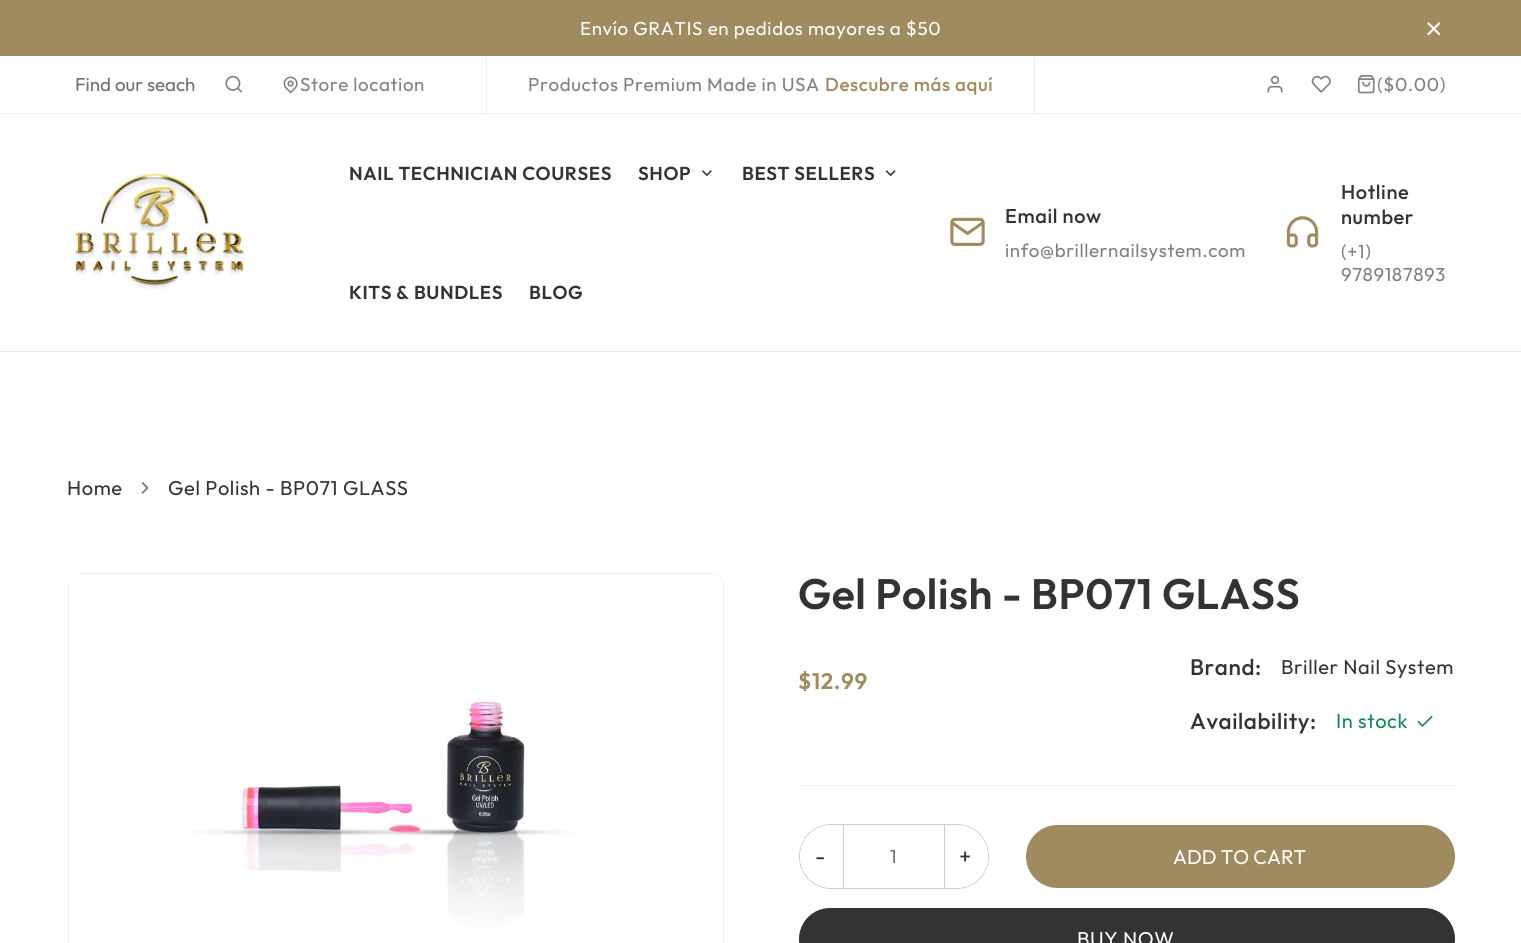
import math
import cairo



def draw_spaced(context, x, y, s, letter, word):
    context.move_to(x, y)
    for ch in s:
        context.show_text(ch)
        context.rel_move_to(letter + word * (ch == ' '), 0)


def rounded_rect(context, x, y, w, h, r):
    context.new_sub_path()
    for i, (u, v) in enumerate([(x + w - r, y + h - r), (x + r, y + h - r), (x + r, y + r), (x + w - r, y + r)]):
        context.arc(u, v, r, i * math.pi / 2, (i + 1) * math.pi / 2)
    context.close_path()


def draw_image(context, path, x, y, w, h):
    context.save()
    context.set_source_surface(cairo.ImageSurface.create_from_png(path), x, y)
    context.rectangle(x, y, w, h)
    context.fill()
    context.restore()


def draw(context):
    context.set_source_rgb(1, 1, 1)
    context.paint()
    context.set_source_rgb(159 / 255, 139 / 255, 95 / 255)
    context.rectangle(0, 0, 1521, 56)
    context.fill()
    draw_image(context, "images/1.png", 1427, 22, 14, 14)
    context.set_source_rgb(239 / 255, 239 / 255, 239 / 255)
    context.rectangle(0, 113, 1521, 1)
    context.fill()
    draw_image(context, "images/2.png", 225, 75, 17, 18)
    draw_image(context, "images/3.png", 283, 76, 15, 18)
    context.rectangle(1034, 56, 1, 57)
    context.fill()
    context.rectangle(486, 56, 1, 57)
    context.fill()
    draw_image(context, "images/4.png", 1267, 75, 16, 18)
    draw_image(context, "images/5.png", 1311, 75, 20, 18)
    draw_image(context, "images/6.png", 1357, 75, 18, 19)
    draw_image(context, "images/7.png", 75, 173, 169, 117)
    draw_image(context, "images/8.png", 702, 170, 10, 7)
    draw_image(context, "images/9.png", 885, 170, 11, 7)
    draw_image(context, "images/10.png", 950, 217, 35, 29)
    draw_image(context, "images/11.png", 1286, 216, 33, 32)
    context.set_source_rgb(235 / 255, 235 / 255, 235 / 255)
    context.rectangle(0, 351, 1521, 1)
    context.fill()
    draw_image(context, "images/12.png", 141, 482, 8, 12)
    rounded_rect(context, 68.5, 573.5, 655, 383, 12.5)
    context.set_source_rgb(239 / 255, 239 / 255, 239 / 255)
    context.set_line_width(1)
    context.stroke()
    draw_image(context, "images/13.png", 69, 574, 654, 163)
    draw_image(context, "images/14.png", 69, 614, 654, 329)
    draw_image(context, "images/15.png", 1417, 715, 16, 12)
    context.rectangle(799, 785, 656, 1)
    context.fill()
    rounded_rect(context, 799.5, 824.5, 189, 64, 32)
    context.set_source_rgb(204 / 255, 204 / 255, 204 / 255)
    context.stroke()
    context.set_source_rgb(1, 1, 1)
    rounded_rect(context, 800, 825, 188, 63, 31.5)
    context.fill()
    context.set_source_rgb(204 / 255, 204 / 255, 204 / 255)
    context.rectangle(843, 825, 1, 63)
    context.fill()
    context.rectangle(944, 825, 1, 63)
    context.fill()
    context.set_source_rgb(159 / 255, 139 / 255, 95 / 255)
    rounded_rect(context, 1026, 825, 429, 63, 31.5)
    context.fill()
    context.set_source_rgb(51 / 255, 51 / 255, 51 / 255)
    rounded_rect(context, 799, 908, 656, 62, 31)
    context.fill()
    context.select_font_face("Outfit")
    context.set_font_size(18.75)
    context.set_source_rgb(1, 1, 1)
    draw_spaced(context, 580, 35, "Envío GRATIS en pedidos mayores a $50", 0.6, 0)
    context.save()
    rounded_rect(context, 75, 73, 169, 23, 11.5)
    context.clip()
    context.set_source_rgb(111 / 255, 111 / 255, 111 / 255)
    context.move_to(75, 91)
    context.show_text("Find our seach")
    context.restore()
    context.set_source_rgb(128 / 255, 128 / 255, 128 / 255)
    draw_spaced(context, 300, 91, "Store location", 0.6, 0)
    draw_spaced(context, 528, 91, "Productos Premium Made in USA", 0.6, 0)
    context.select_font_face("Outfit Medium")
    context.set_source_rgb(159 / 255, 139 / 255, 95 / 255)
    draw_spaced(context, 825, 91, "Descubre más aquí", 0.6, 0)
    context.select_font_face("Outfit")
    context.set_source_rgb(128 / 255, 128 / 255, 128 / 255)
    draw_spaced(context, 1377, 91, "($0.00)", 0.6, 0)
    context.select_font_face("Outfit SemiBold")
    context.set_source_rgb(51 / 255, 51 / 255, 51 / 255)
    draw_spaced(context, 349, 180, "NAIL TECHNICIAN COURSES", 0.6, 0)
    draw_spaced(context, 638, 180, "SHOP", 0.6, 0)
    draw_spaced(context, 742, 180, "BEST SELLERS", 0.6, 0)
    draw_spaced(context, 349, 299, "KITS & BUNDLES", 0.6, 0)
    draw_spaced(context, 529, 299, "BLOG", 0.6, 0)
    context.select_font_face("Outfit Medium")
    context.set_font_size(20)
    draw_spaced(context, 1005, 223, "Email now", 0.6, 0)
    context.select_font_face("Outfit")
    context.set_font_size(18.75)
    context.set_source_rgb(128 / 255, 128 / 255, 128 / 255)
    draw_spaced(context, 1005, 257, "info@brillernailsystem.com", 0.6, 0)
    context.select_font_face("Outfit Medium")
    context.set_font_size(20)
    context.set_source_rgb(51 / 255, 51 / 255, 51 / 255)
    draw_spaced(context, 1341, 199, "Hotline", 0.6, 0)
    draw_spaced(context, 1341, 224, "number", 0.6, 0)
    context.select_font_face("Outfit")
    context.set_font_size(18.75)
    context.set_source_rgb(128 / 255, 128 / 255, 128 / 255)
    draw_spaced(context, 1341, 258, "(+1)", 0.6, 0)
    draw_spaced(context, 1341, 281, "9789187893", 0.6, 0)
    context.set_font_size(20)
    context.set_source_rgb(51 / 255, 51 / 255, 51 / 255)
    draw_spaced(context, 67, 495, "Home", 0.6, 0)
    draw_spaced(context, 168, 495, "Gel Polish - BP071 GLASS", 0.6, 0)
    context.select_font_face("Outfit SemiBold")
    context.set_font_size(42.5)
    draw_spaced(context, 798, 609, "Gel Polish - BP071 GLASS", 0.6, 0)
    context.set_font_size(22.5)
    context.set_source_rgb(159 / 255, 139 / 255, 95 / 255)
    draw_spaced(context, 798, 689, "$12.99", 0.6, 0)
    context.select_font_face("Outfit Medium")
    context.set_source_rgb(51 / 255, 51 / 255, 51 / 255)
    draw_spaced(context, 1190, 675, "Brand:", 0.6, 0)
    context.select_font_face("Outfit")
    context.set_font_size(20)
    draw_spaced(context, 1281, 674, "Briller Nail System", 0.6, 0)
    context.select_font_face("Outfit Medium")
    context.set_font_size(22.5)
    draw_spaced(context, 1190, 729, "Availability:", 0.6, 0)
    context.select_font_face("Outfit")
    context.set_font_size(20)
    context.set_source_rgb(25 / 255, 135 / 255, 84 / 255)
    draw_spaced(context, 1336, 728, "In stock", 0.6, 0)
    context.set_font_size(22.5)
    context.set_source_rgb(51 / 255, 51 / 255, 51 / 255)
    draw_spaced(context, 815, 864, "-", 0.6, 0)
    context.set_font_size(18.75)
    context.set_source_rgb(111 / 255, 111 / 255, 111 / 255)
    context.move_to(890, 863)
    context.show_text("1")
    context.set_font_size(22.5)
    context.set_source_rgb(51 / 255, 51 / 255, 51 / 255)
    draw_spaced(context, 959, 864, "+", 0.6, 0)
    context.set_font_size(20)
    context.set_source_rgb(1, 1, 1)
    context.move_to(1173, 864)
    context.show_text("ADD TO CART")
    draw_spaced(context, 1077, 946, "BUY NOW", 0.6, 0)


surface = cairo.ImageSurface(cairo.Format.RGB24, 1521, 943)
context = cairo.Context(surface)
options = cairo.FontOptions()
options.set_hint_metrics(cairo.HintMetrics.OFF)
options.set_hint_style(cairo.HintStyle.NONE)
context.set_font_options(options)
context.set_miter_limit(4)
draw(context)
surface.write_to_png("out.png")
